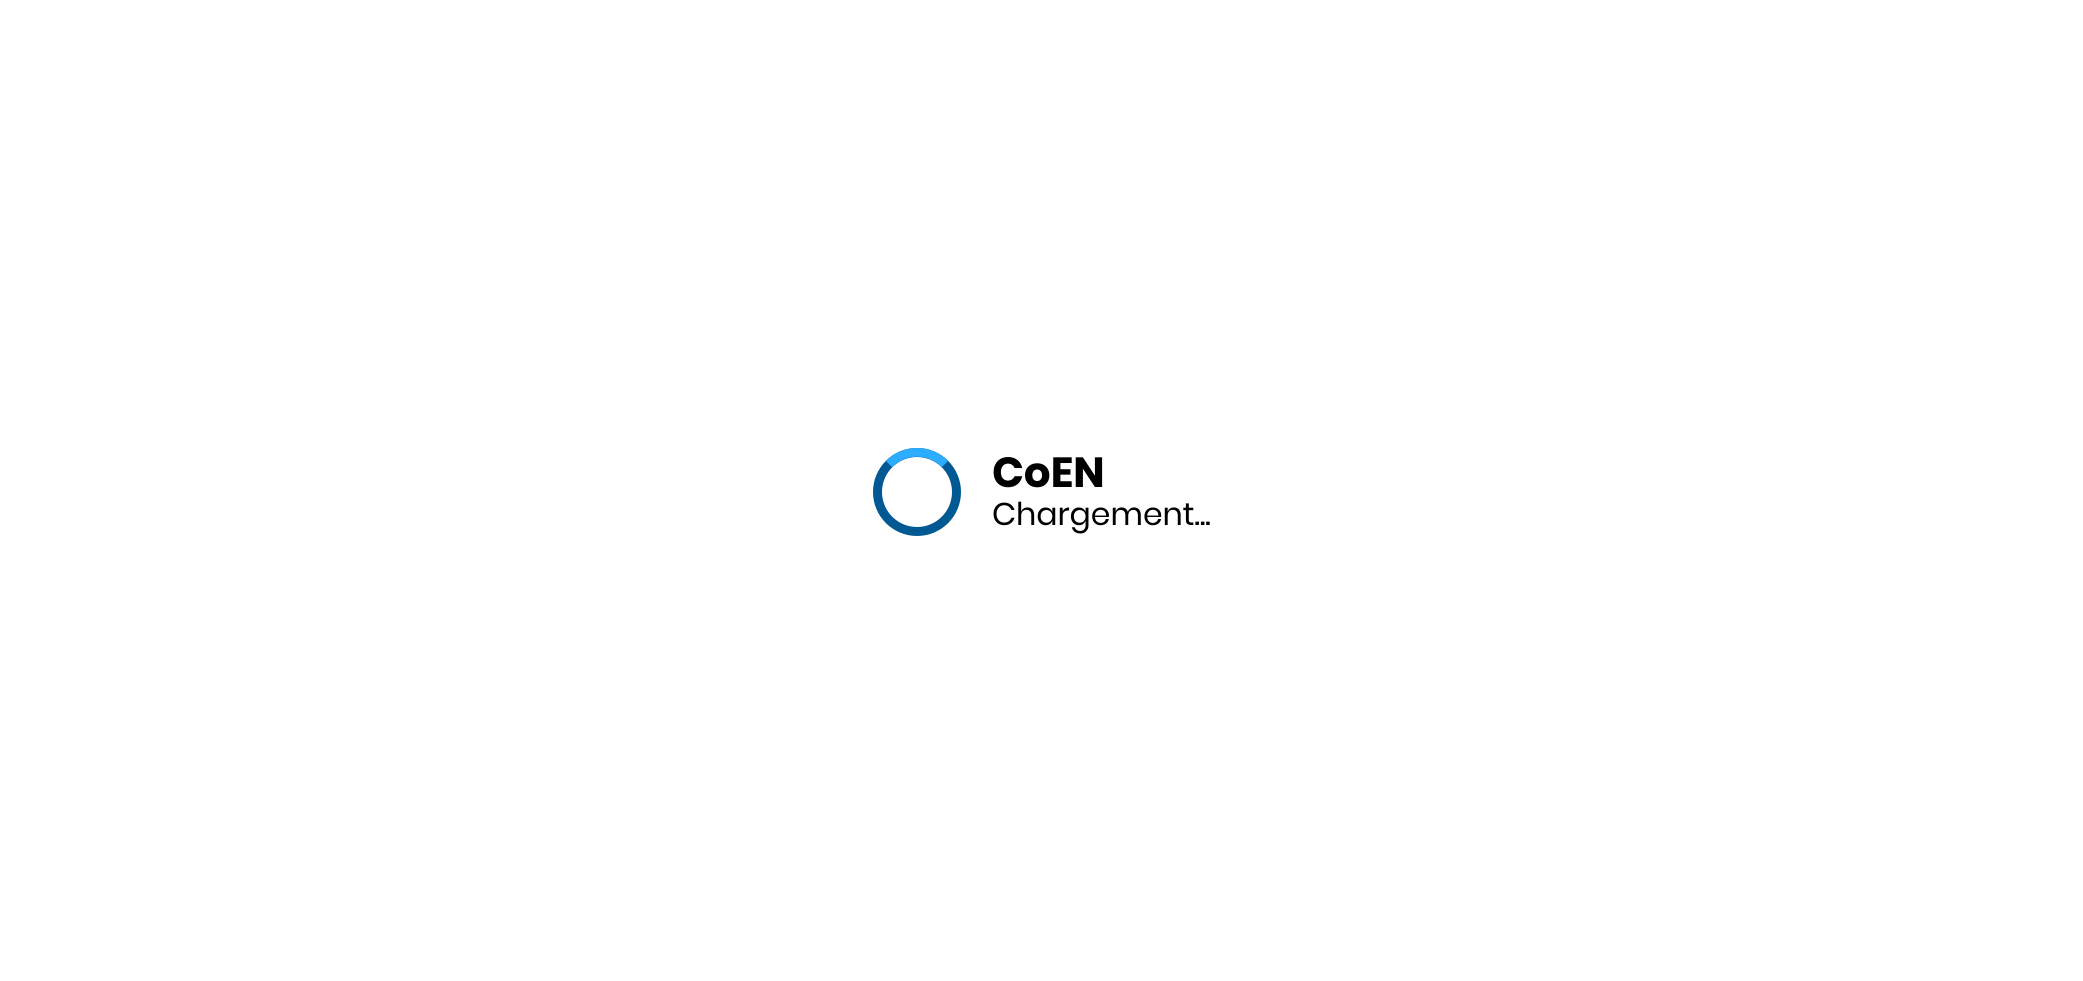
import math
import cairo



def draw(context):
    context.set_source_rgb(1, 1, 1)
    context.paint()
    context.arc(917, 492, 39.5, 0, 2 * math.pi)
    context.set_source_rgb(0, 89 / 255, 146 / 255)
    context.set_line_width(9)
    context.stroke()
    context.new_path()
    context.move_to(889, 464)
    context.curve_to(904.5, 448.5, 929.5, 448.5, 945, 464)
    context.set_source_rgb(44 / 255, 173 / 255, 1)
    context.set_line_width(8.8)
    context.stroke()
    context.select_font_face("Poppins", cairo.FontSlant.NORMAL, cairo.FontWeight.BOLD)
    context.set_font_size(42)
    context.set_source_rgb(0, 0, 0)
    context.move_to(992, 487)
    context.show_text("CoEN")
    context.select_font_face("Poppins")
    context.set_font_size(31.5)
    context.move_to(992, 525)
    context.show_text("Chargement...")


surface = cairo.ImageSurface(cairo.Format.RGB24, 2083, 981)
context = cairo.Context(surface)
options = cairo.FontOptions()
options.set_hint_metrics(cairo.HintMetrics.OFF)
options.set_hint_style(cairo.HintStyle.NONE)
context.set_font_options(options)
context.set_miter_limit(4)
draw(context)
surface.write_to_png("out.png")
